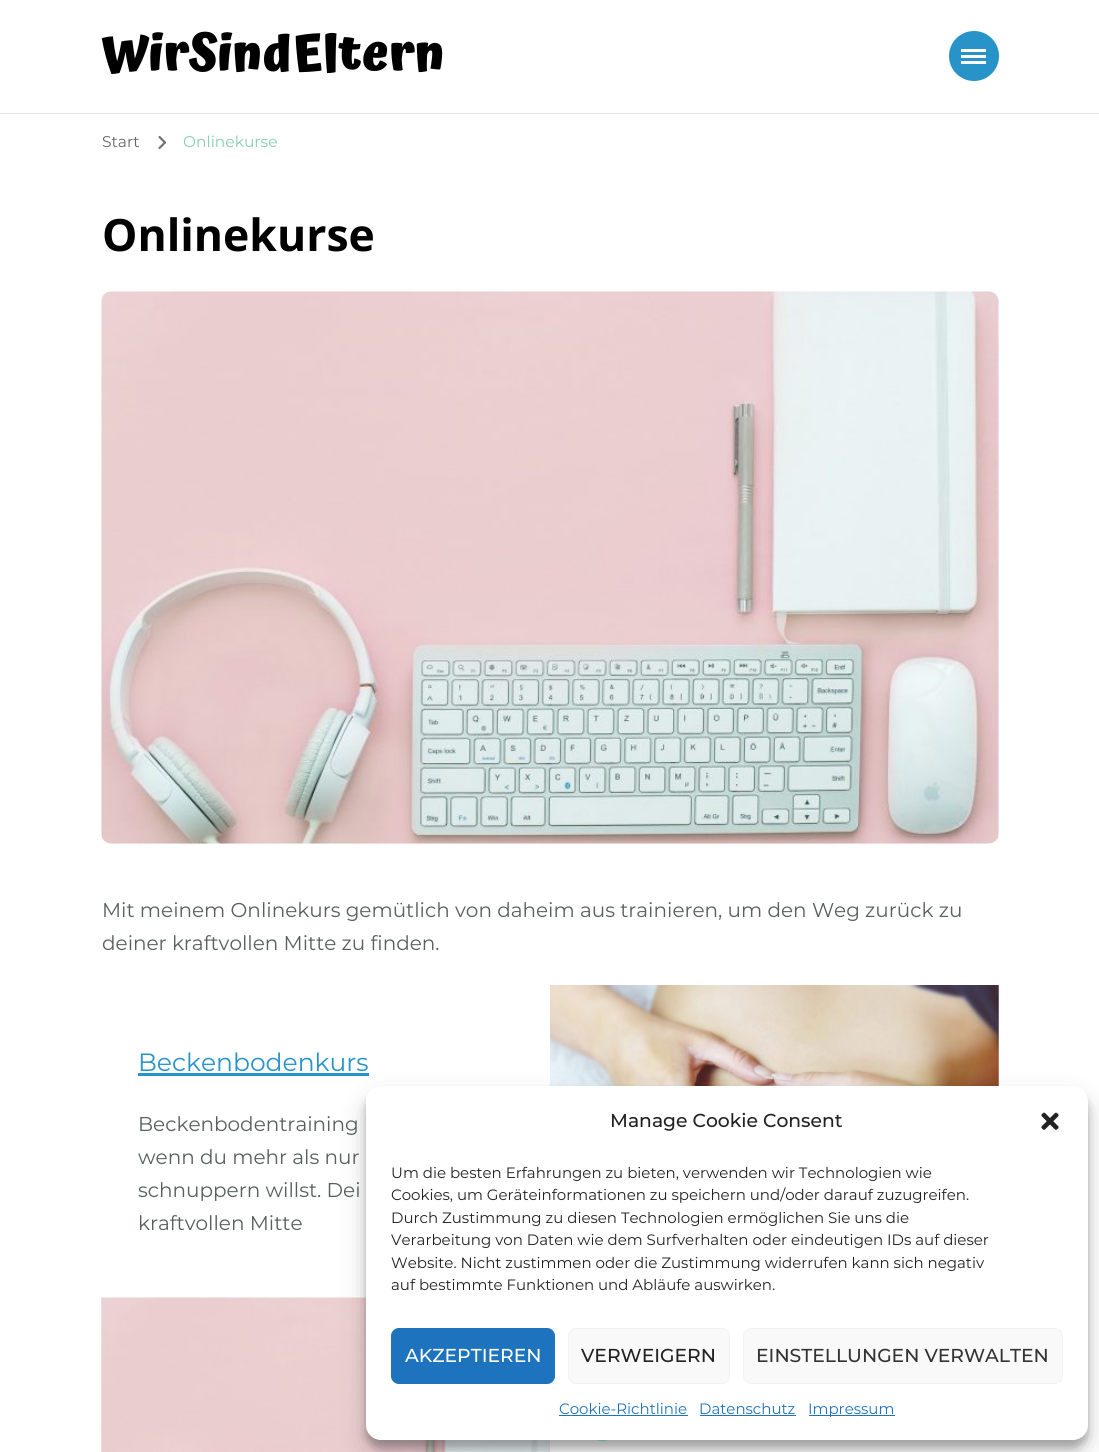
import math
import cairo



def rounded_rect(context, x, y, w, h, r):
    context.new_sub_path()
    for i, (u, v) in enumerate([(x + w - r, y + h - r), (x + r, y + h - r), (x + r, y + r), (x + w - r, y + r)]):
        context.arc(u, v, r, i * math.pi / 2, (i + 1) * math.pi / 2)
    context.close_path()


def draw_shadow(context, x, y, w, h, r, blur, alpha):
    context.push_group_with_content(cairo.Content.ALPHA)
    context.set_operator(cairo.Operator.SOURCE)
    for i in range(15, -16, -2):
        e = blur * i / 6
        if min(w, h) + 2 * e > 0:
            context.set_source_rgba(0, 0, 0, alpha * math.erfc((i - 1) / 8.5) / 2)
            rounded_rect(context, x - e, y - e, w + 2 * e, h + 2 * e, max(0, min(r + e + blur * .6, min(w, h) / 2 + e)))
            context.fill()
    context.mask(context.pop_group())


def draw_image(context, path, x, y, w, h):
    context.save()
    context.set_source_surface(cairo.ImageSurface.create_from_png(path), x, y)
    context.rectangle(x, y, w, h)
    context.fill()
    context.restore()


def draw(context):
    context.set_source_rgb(1, 1, 1)
    context.paint()
    context.set_source_rgb(229 / 255, 229 / 255, 229 / 255)
    context.rectangle(0, 113, 1099, 1)
    context.fill()
    context.set_source_rgb(40 / 255, 147 / 255, 201 / 255)
    context.arc(974, 56, 25, 0, 2 * math.pi)
    context.fill()
    context.set_source_rgb(1, 1, 1)
    context.rectangle(961, 49, 25, 3)
    context.fill()
    context.rectangle(961, 55, 25, 3)
    context.fill()
    context.rectangle(961, 61, 25, 3)
    context.fill()
    draw_image(context, "images/1.png", 158, 136, 9, 13)
    draw_image(context, "images/2.png", 101, 291, 898, 553)
    draw_image(context, "images/3.png", 550, 985, 449, 101)
    context.set_source_rgb(40 / 255, 147 / 255, 201 / 255)
    context.rectangle(138, 1073, 231, 3)
    context.fill()
    draw_image(context, "images/4.png", 101, 1297, 449, 155)
    draw_image(context, "images/5.png", 596, 1440, 13, 2)
    context.set_source_rgb(0, 0, 0)
    draw_shadow(context, 366, 1094, 722, 354, 15, 4, 0.23)
    draw_shadow(context, 366, 1099, 722, 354, 15, 12.5, 0.19)
    context.set_source_rgb(1, 1, 1)
    rounded_rect(context, 366, 1086, 722, 354, 15)
    context.fill()
    draw_image(context, "images/6.png", 1041, 1112, 18, 18)
    context.set_source_rgb(30 / 255, 115 / 255, 190 / 255)
    rounded_rect(context, 391.5, 1328.5, 163, 55, 7.5)
    context.fill_preserve()
    context.set_line_width(1)
    context.stroke()
    context.set_source_rgb(249 / 255, 249 / 255, 249 / 255)
    rounded_rect(context, 568.5, 1328.5, 161, 55, 7.5)
    context.fill_preserve()
    context.set_source_rgb(242 / 255, 242 / 255, 242 / 255)
    context.stroke()
    context.set_source_rgb(249 / 255, 249 / 255, 249 / 255)
    rounded_rect(context, 743.5, 1328.5, 319, 55, 7.5)
    context.fill_preserve()
    context.set_source_rgb(242 / 255, 242 / 255, 242 / 255)
    context.stroke()
    context.set_source_rgb(30 / 255, 115 / 255, 190 / 255)
    context.rectangle(559, 1415, 129, 1)
    context.fill()
    context.rectangle(700, 1415, 96, 1)
    context.fill()
    context.rectangle(809, 1415, 86, 1)
    context.fill()
    context.select_font_face("Atma", cairo.FontSlant.NORMAL, cairo.FontWeight.BOLD)
    context.set_font_size(50)
    context.set_source_rgb(0, 0, 0)
    context.move_to(102, 70)
    context.show_text("WirSindEltern")
    context.select_font_face("Montserrat")
    context.set_font_size(15.5)
    context.set_source_rgb(102 / 255, 102 / 255, 102 / 255)
    context.move_to(102, 147)
    context.show_text("Start")
    context.set_source_rgb(134 / 255, 206 / 255, 182 / 255)
    context.move_to(183, 147)
    context.show_text("Onlinekurse")
    context.select_font_face("Open Sans", cairo.FontSlant.NORMAL, cairo.FontWeight.BOLD)
    context.set_font_size(44.5)
    context.set_source_rgb(0, 0, 0)
    context.move_to(102, 251)
    context.show_text("Onlinekurse")
    context.select_font_face("Montserrat")
    context.set_font_size(20)
    context.set_source_rgb(89 / 255, 95 / 255, 95 / 255)
    context.move_to(102, 917)
    context.show_text("Mit meinem Onlinekurs gemütlich von daheim aus trainieren, um den Weg zurück zu")
    context.move_to(102, 950)
    context.show_text("deiner kraftvollen Mitte zu finden.")
    context.set_font_size(25)
    context.set_source_rgb(40 / 255, 147 / 255, 201 / 255)
    context.move_to(138, 1071)
    context.show_text("Beckenbodenkurs")
    context.set_font_size(20)
    context.set_source_rgb(89 / 255, 95 / 255, 95 / 255)
    context.move_to(138, 1131)
    context.show_text("Beckenbodentraining")
    context.move_to(138, 1164)
    context.show_text("wenn du mehr als nur")
    context.move_to(138, 1197)
    context.show_text("schnuppern willst. Dei")
    context.move_to(138, 1230)
    context.show_text("kraftvollen Mitte")
    context.select_font_face("Montserrat Medium")
    context.set_font_size(18.75)
    context.set_source_rgb(34 / 255, 34 / 255, 34 / 255)
    context.move_to(610, 1127)
    context.show_text("Manage Cookie Consent")
    context.select_font_face("Montserrat")
    context.set_font_size(15)
    context.move_to(391, 1178)
    context.show_text("Um die besten Erfahrungen zu bieten, verwenden wir Technologien wie")
    context.move_to(391, 1200)
    context.show_text("Cookies, um Geräteinformationen zu speichern und/oder darauf zuzugreifen.")
    context.move_to(391, 1223)
    context.show_text("Durch Zustimmung zu diesen Technologien ermöglichen Sie uns die")
    context.move_to(391, 1245)
    context.show_text("Verarbeitung von Daten wie dem Surfverhalten oder eindeutigen IDs auf dieser")
    context.move_to(391, 1268)
    context.show_text("Website. Nicht zustimmen oder die Zustimmung widerrufen kann sich negativ")
    context.move_to(391, 1290)
    context.show_text("auf bestimmte Funktionen und Abläufe auswirken.")
    context.select_font_face("Montserrat Medium")
    context.set_font_size(18.75)
    context.set_source_rgb(1, 1, 1)
    context.move_to(405, 1362)
    context.show_text("AKZEPTIEREN")
    context.set_source_rgb(34 / 255, 34 / 255, 34 / 255)
    context.move_to(581, 1362)
    context.show_text("VERWEIGERN")
    context.set_source_rgb(51 / 255, 51 / 255, 51 / 255)
    context.move_to(756, 1362)
    context.show_text("EINSTELLUNGEN VERWALTEN")
    context.select_font_face("Montserrat")
    context.set_font_size(15)
    context.set_source_rgb(30 / 255, 115 / 255, 190 / 255)
    context.move_to(559, 1414)
    context.show_text("Cookie-Richtlinie")
    context.move_to(699, 1414)
    context.show_text("Datenschutz")
    context.move_to(808, 1414)
    context.show_text("Impressum")


surface = cairo.ImageSurface(cairo.Format.RGB24, 1099, 1452)
context = cairo.Context(surface)
options = cairo.FontOptions()
options.set_hint_metrics(cairo.HintMetrics.OFF)
options.set_hint_style(cairo.HintStyle.NONE)
context.set_font_options(options)
context.set_miter_limit(4)
draw(context)
surface.write_to_png("out.png")
